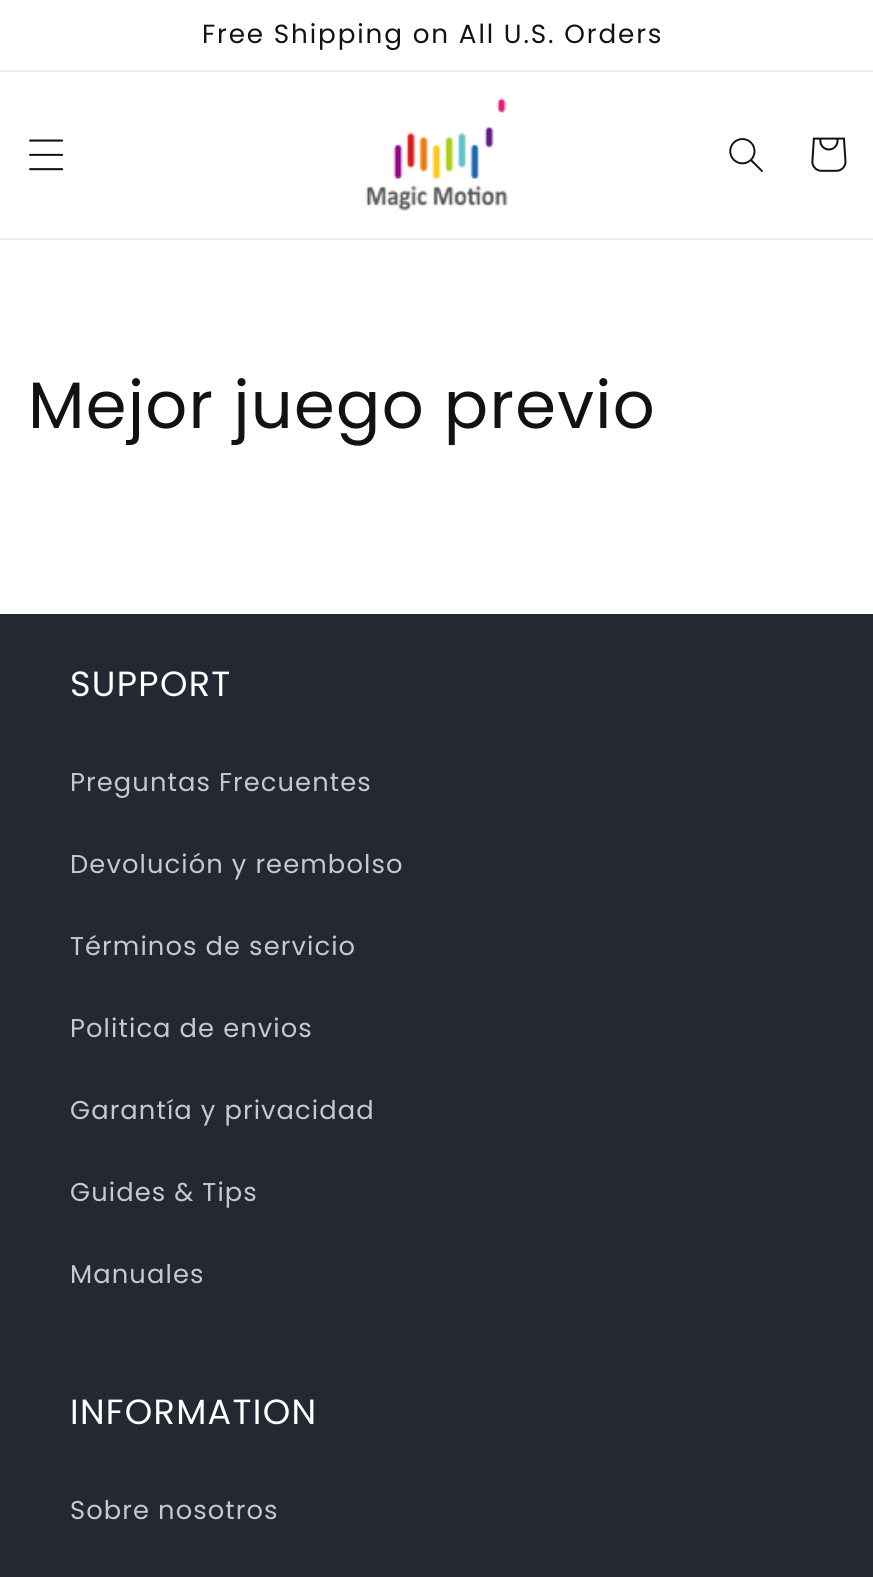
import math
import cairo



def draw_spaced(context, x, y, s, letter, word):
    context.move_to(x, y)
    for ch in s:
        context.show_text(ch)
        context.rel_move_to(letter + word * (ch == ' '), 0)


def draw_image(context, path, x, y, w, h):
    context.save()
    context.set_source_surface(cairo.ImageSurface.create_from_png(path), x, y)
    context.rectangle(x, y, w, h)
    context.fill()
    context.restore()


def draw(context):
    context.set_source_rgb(1, 1, 1)
    context.paint()
    context.set_source_rgb(236 / 255, 236 / 255, 236 / 255)
    context.rectangle(0, 70, 873, 2)
    context.fill()
    context.rectangle(0, 238, 873, 2)
    context.fill()
    draw_image(context, "images/1.png", 29, 139, 35, 32)
    draw_image(context, "images/2.png", 365, 97, 143, 114)
    draw_image(context, "images/3.png", 729, 138, 34, 34)
    draw_image(context, "images/4.png", 811, 137, 36, 35)
    context.set_source_rgb(36 / 255, 40 / 255, 51 / 255)
    context.rectangle(0, 614, 873, 963)
    context.fill()
    context.select_font_face("Poppins")
    context.set_font_size(26.25)
    context.set_source_rgb(18 / 255, 18 / 255, 18 / 255)
    draw_spaced(context, 202, 43, "Free Shipping on All U.S. Orders", 1.85, 0)
    context.set_font_size(65.6)
    draw_spaced(context, 28, 428, "Mejor juego previo", 1.3, 0)
    context.set_font_size(35)
    context.set_source_rgb(1, 1, 1)
    draw_spaced(context, 70, 696, "SUPPORT", 1.3, 0)
    context.set_font_size(25.75)
    context.set_source_rgb(200 / 255, 201 / 255, 204 / 255)
    draw_spaced(context, 70, 791, "Preguntas Frecuentes", 1.1, 0)
    draw_spaced(context, 70, 873, "Devolución y reembolso", 1.1, 0)
    draw_spaced(context, 70, 955, "Términos de servicio", 1.1, 0)
    draw_spaced(context, 70, 1037, "Politica de envios", 1.1, 0)
    draw_spaced(context, 70, 1119, "Garantía y privacidad", 1.1, 0)
    draw_spaced(context, 70, 1201, "Guides & Tips", 1.1, 0)
    draw_spaced(context, 70, 1283, "Manuales", 1.1, 0)
    context.set_font_size(35)
    context.set_source_rgb(1, 1, 1)
    draw_spaced(context, 70, 1424, "INFORMATION", 1.3, 0)
    context.set_font_size(25.75)
    context.set_source_rgb(200 / 255, 201 / 255, 204 / 255)
    draw_spaced(context, 70, 1519, "Sobre nosotros", 1.1, 0)


surface = cairo.ImageSurface(cairo.Format.RGB24, 873, 1577)
context = cairo.Context(surface)
options = cairo.FontOptions()
options.set_hint_metrics(cairo.HintMetrics.OFF)
options.set_hint_style(cairo.HintStyle.NONE)
context.set_font_options(options)
context.set_miter_limit(4)
draw(context)
surface.write_to_png("out.png")
